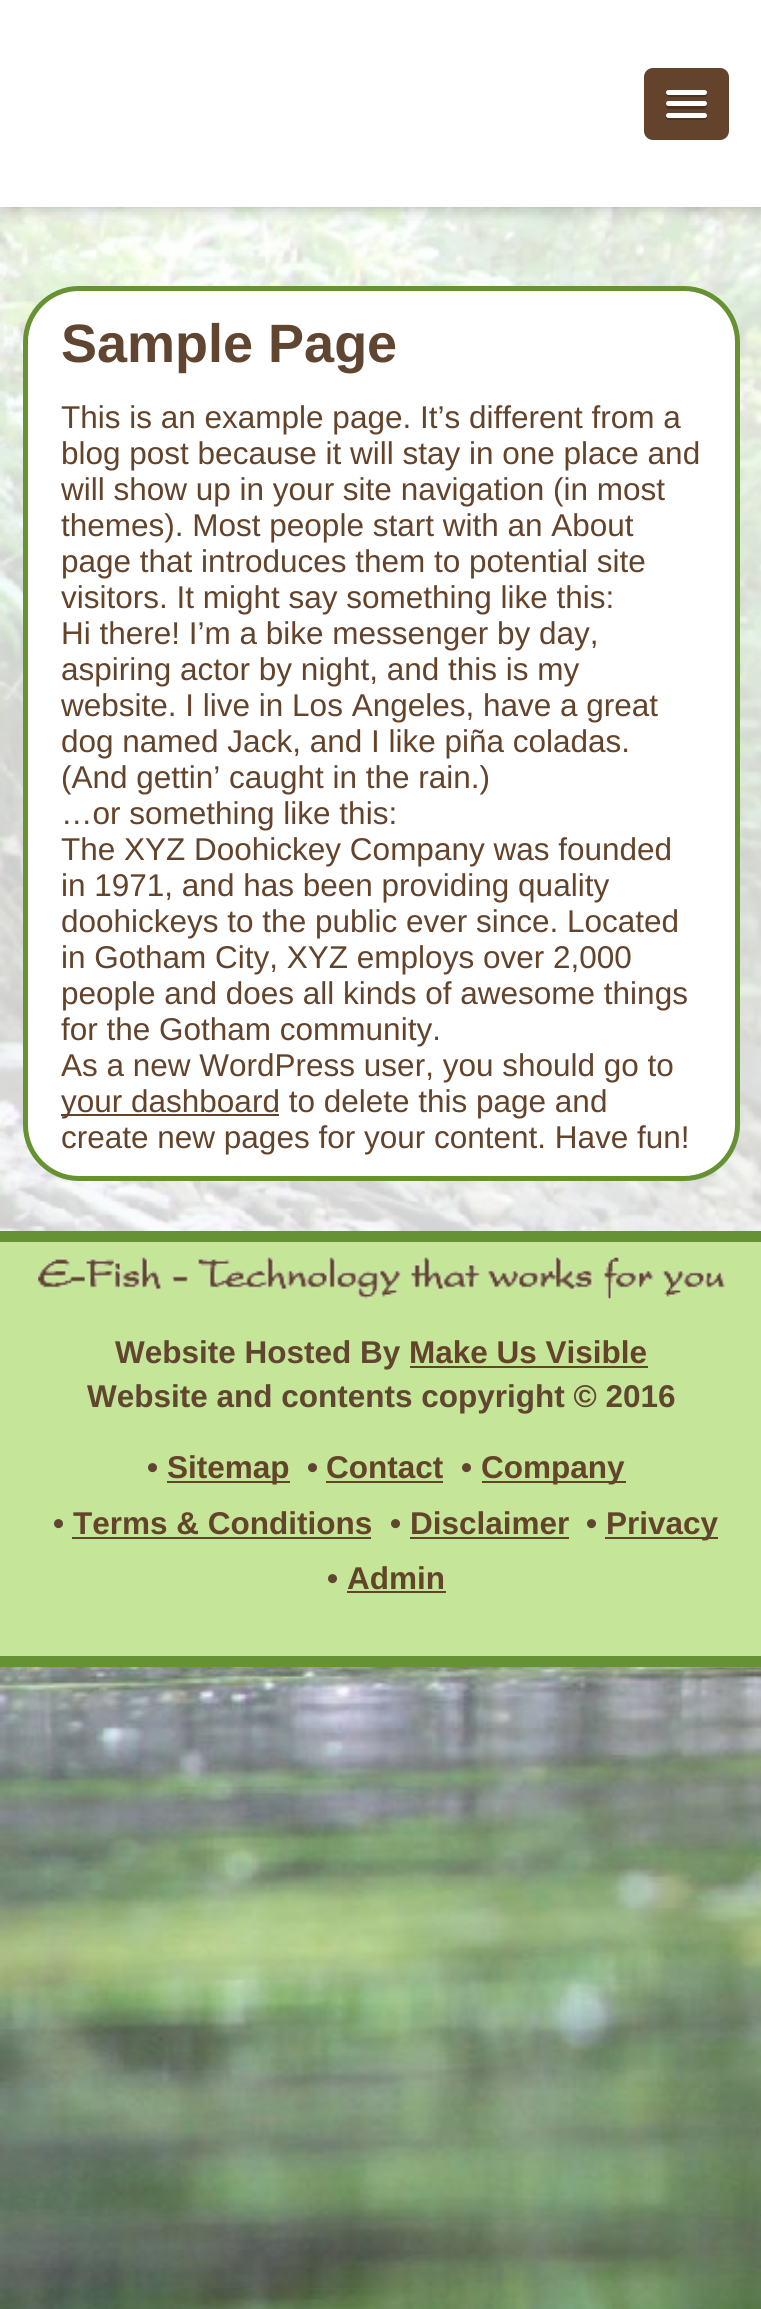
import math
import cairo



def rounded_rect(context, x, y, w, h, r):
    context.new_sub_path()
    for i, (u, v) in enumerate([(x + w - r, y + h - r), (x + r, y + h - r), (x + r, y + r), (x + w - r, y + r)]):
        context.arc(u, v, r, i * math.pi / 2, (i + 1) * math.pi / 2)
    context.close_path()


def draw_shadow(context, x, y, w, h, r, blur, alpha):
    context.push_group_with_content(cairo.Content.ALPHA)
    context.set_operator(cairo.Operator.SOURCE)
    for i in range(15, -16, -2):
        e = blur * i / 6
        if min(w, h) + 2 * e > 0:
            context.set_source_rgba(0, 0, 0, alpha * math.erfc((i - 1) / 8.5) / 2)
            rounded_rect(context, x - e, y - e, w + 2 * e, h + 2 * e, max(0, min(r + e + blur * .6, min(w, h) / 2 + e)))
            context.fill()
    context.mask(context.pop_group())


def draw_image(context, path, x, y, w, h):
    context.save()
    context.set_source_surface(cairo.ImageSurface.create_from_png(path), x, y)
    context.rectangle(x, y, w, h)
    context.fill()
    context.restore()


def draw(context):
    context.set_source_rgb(1, 1, 1)
    context.paint()
    draw_image(context, "images/1.png", 0, 207, 761, 2102)
    context.set_source_rgba(1, 1, 1, 0.8)
    context.rectangle(0, 207, 761, 1024)
    context.fill()
    context.set_source_rgb(0, 0, 0)
    draw_shadow(context, 0, 0, 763, 207, 0, 9, 0.3)
    context.set_source_rgb(1, 1, 1)
    context.rectangle(0, 0, 761, 207)
    context.fill()
    context.set_source_rgb(100 / 255, 67 / 255, 44 / 255)
    rounded_rect(context, 644, 68, 85, 72, 9)
    context.fill()
    context.set_source_rgb(75 / 255, 50 / 255, 33 / 255)
    context.new_path()
    context.move_to(666, 93)
    context.curve_to(664, 98, 674, 97, 674, 97)
    context.line_to(698, 97)
    context.curve_to(700, 97, 706, 98, 707, 95)
    context.line_to(706, 93)
    context.curve_to(706, 94, 705, 94, 704, 94)
    context.line_to(668, 94)
    context.curve_to(667, 94, 667, 94, 666, 93)
    context.close_path()
    context.fill()
    context.set_source_rgb(1, 1, 1)
    rounded_rect(context, 666, 90, 41, 5, 2.5)
    context.fill()
    context.set_source_rgb(75 / 255, 50 / 255, 33 / 255)
    context.new_path()
    context.move_to(667, 105)
    context.curve_to(663, 110, 674, 109, 674, 109)
    context.line_to(686, 109)
    context.curve_to(690, 109, 704, 110, 706, 108)
    context.curve_to(707, 107, 707, 106, 706, 105)
    context.line_to(705, 106)
    context.line_to(668, 106)
    context.close_path()
    context.fill()
    context.set_source_rgb(1, 1, 1)
    rounded_rect(context, 666, 101, 41, 5, 2.5)
    context.fill()
    context.set_source_rgb(75 / 255, 50 / 255, 33 / 255)
    context.new_path()
    context.move_to(666, 116)
    context.curve_to(663, 121, 674, 120, 674, 120)
    context.line_to(698, 120)
    context.curve_to(700, 120, 706, 121, 707, 118)
    context.line_to(706, 116)
    context.line_to(705, 117)
    context.line_to(668, 117)
    context.close_path()
    context.fill()
    context.set_source_rgb(1, 1, 1)
    rounded_rect(context, 666, 113, 41, 5, 2.5)
    context.fill()
    rounded_rect(context, 25.5, 288.5, 712, 890, 53.5)
    context.fill_preserve()
    context.set_source_rgb(102 / 255, 146 / 255, 51 / 255)
    context.set_line_width(5)
    context.stroke()
    context.set_source_rgb(100 / 255, 67 / 255, 43 / 255)
    context.rectangle(61, 1114, 218, 2)
    context.fill()
    context.set_source_rgb(102 / 255, 146 / 255, 51 / 255)
    context.rectangle(0, 1231, 761, 11)
    context.fill()
    context.set_source_rgb(197 / 255, 229 / 255, 152 / 255)
    context.rectangle(0, 1242, 761, 414)
    context.fill()
    draw_image(context, "images/2.png", 38, 1257, 687, 42)
    context.set_source_rgb(100 / 255, 67 / 255, 43 / 255)
    context.rectangle(410, 1366, 238, 2)
    context.fill()
    context.rectangle(167, 1481, 123, 2)
    context.fill()
    context.rectangle(326, 1481, 117, 2)
    context.fill()
    context.rectangle(482, 1481, 144, 2)
    context.fill()
    context.rectangle(72, 1537, 299, 2)
    context.fill()
    context.rectangle(410, 1537, 159, 2)
    context.fill()
    context.rectangle(605, 1537, 113, 2)
    context.fill()
    context.rectangle(347, 1591, 99, 2)
    context.fill()
    context.set_source_rgb(102 / 255, 146 / 255, 51 / 255)
    context.rectangle(0, 1656, 761, 11)
    context.fill()
    context.select_font_face("Liberation Sans", cairo.FontSlant.NORMAL, cairo.FontWeight.BOLD)
    context.set_font_size(54)
    context.set_source_rgb(96 / 255, 70 / 255, 49 / 255)
    context.move_to(61, 362)
    context.show_text("Sample Page")
    context.select_font_face("Liberation Sans")
    context.set_font_size(31.5)
    context.set_source_rgb(100 / 255, 67 / 255, 43 / 255)
    context.move_to(61, 428)
    context.show_text("This is an example page. It’s different from a")
    context.move_to(61, 464)
    context.show_text("blog post because it will stay in one place and")
    context.move_to(61, 500)
    context.show_text("will show up in your site navigation (in most")
    context.move_to(61, 536)
    context.show_text("themes). Most people start with an About")
    context.move_to(61, 572)
    context.show_text("page that introduces them to potential site")
    context.move_to(61, 608)
    context.show_text("visitors. It might say something like this:")
    context.move_to(61, 644)
    context.show_text("Hi there! I’m a bike messenger by day,")
    context.move_to(61, 680)
    context.show_text("aspiring actor by night, and this is my")
    context.move_to(61, 716)
    context.show_text("website. I live in Los Angeles, have a great")
    context.move_to(61, 752)
    context.show_text("dog named Jack, and I like piña coladas.")
    context.move_to(61, 788)
    context.show_text("(And gettin’ caught in the rain.)")
    context.move_to(61, 824)
    context.show_text("…or something like this:")
    context.move_to(61, 860)
    context.show_text("The XYZ Doohickey Company was founded")
    context.move_to(61, 896)
    context.show_text("in 1971, and has been providing quality")
    context.move_to(61, 932)
    context.show_text("doohickeys to the public ever since. Located")
    context.move_to(61, 968)
    context.show_text("in Gotham City, XYZ employs over 2,000")
    context.move_to(61, 1004)
    context.show_text("people and does all kinds of awesome things")
    context.move_to(61, 1040)
    context.show_text("for the Gotham community.")
    context.move_to(61, 1076)
    context.show_text("As a new WordPress user, you should go to")
    context.move_to(61, 1112)
    context.show_text("your dashboard to delete this page and")
    context.move_to(61, 1148)
    context.show_text("create new pages for your content. Have fun!")
    context.select_font_face("Liberation Sans", cairo.FontSlant.NORMAL, cairo.FontWeight.BOLD)
    context.set_source_rgb(96 / 255, 70 / 255, 49 / 255)
    context.move_to(115, 1363)
    context.show_text("Website Hosted By")
    context.set_source_rgb(100 / 255, 67 / 255, 43 / 255)
    context.move_to(409, 1363)
    context.show_text("Make Us Visible")
    context.set_source_rgb(96 / 255, 70 / 255, 49 / 255)
    context.move_to(87, 1407)
    context.show_text("Website and contents copyright © 2016")
    context.move_to(147, 1478)
    context.show_text("•")
    context.set_source_rgb(100 / 255, 67 / 255, 43 / 255)
    context.move_to(167, 1478)
    context.show_text("Sitemap")
    context.set_source_rgb(96 / 255, 70 / 255, 49 / 255)
    context.move_to(307, 1478)
    context.show_text("•")
    context.set_source_rgb(100 / 255, 67 / 255, 43 / 255)
    context.move_to(326, 1478)
    context.show_text("Contact")
    context.set_source_rgb(96 / 255, 70 / 255, 49 / 255)
    context.move_to(461, 1478)
    context.show_text("•")
    context.set_source_rgb(100 / 255, 67 / 255, 43 / 255)
    context.move_to(481, 1478)
    context.show_text("Company")
    context.set_source_rgb(96 / 255, 70 / 255, 49 / 255)
    context.move_to(53, 1534)
    context.show_text("•")
    context.set_source_rgb(100 / 255, 67 / 255, 43 / 255)
    context.move_to(73, 1534)
    context.show_text("Terms & Conditions")
    context.set_source_rgb(96 / 255, 70 / 255, 49 / 255)
    context.move_to(390, 1534)
    context.show_text("•")
    context.set_source_rgb(100 / 255, 67 / 255, 43 / 255)
    context.move_to(410, 1534)
    context.show_text("Disclaimer")
    context.set_source_rgb(96 / 255, 70 / 255, 49 / 255)
    context.move_to(586, 1534)
    context.show_text("•")
    context.set_source_rgb(100 / 255, 67 / 255, 43 / 255)
    context.move_to(606, 1534)
    context.show_text("Privacy")
    context.set_source_rgb(96 / 255, 70 / 255, 49 / 255)
    context.move_to(327, 1589)
    context.show_text("•")
    context.set_source_rgb(100 / 255, 67 / 255, 43 / 255)
    context.move_to(347, 1589)
    context.show_text("Admin")


surface = cairo.ImageSurface(cairo.Format.RGB24, 761, 2309)
context = cairo.Context(surface)
options = cairo.FontOptions()
options.set_hint_metrics(cairo.HintMetrics.OFF)
options.set_hint_style(cairo.HintStyle.NONE)
context.set_font_options(options)
context.set_miter_limit(4)
draw(context)
surface.write_to_png("out.png")
